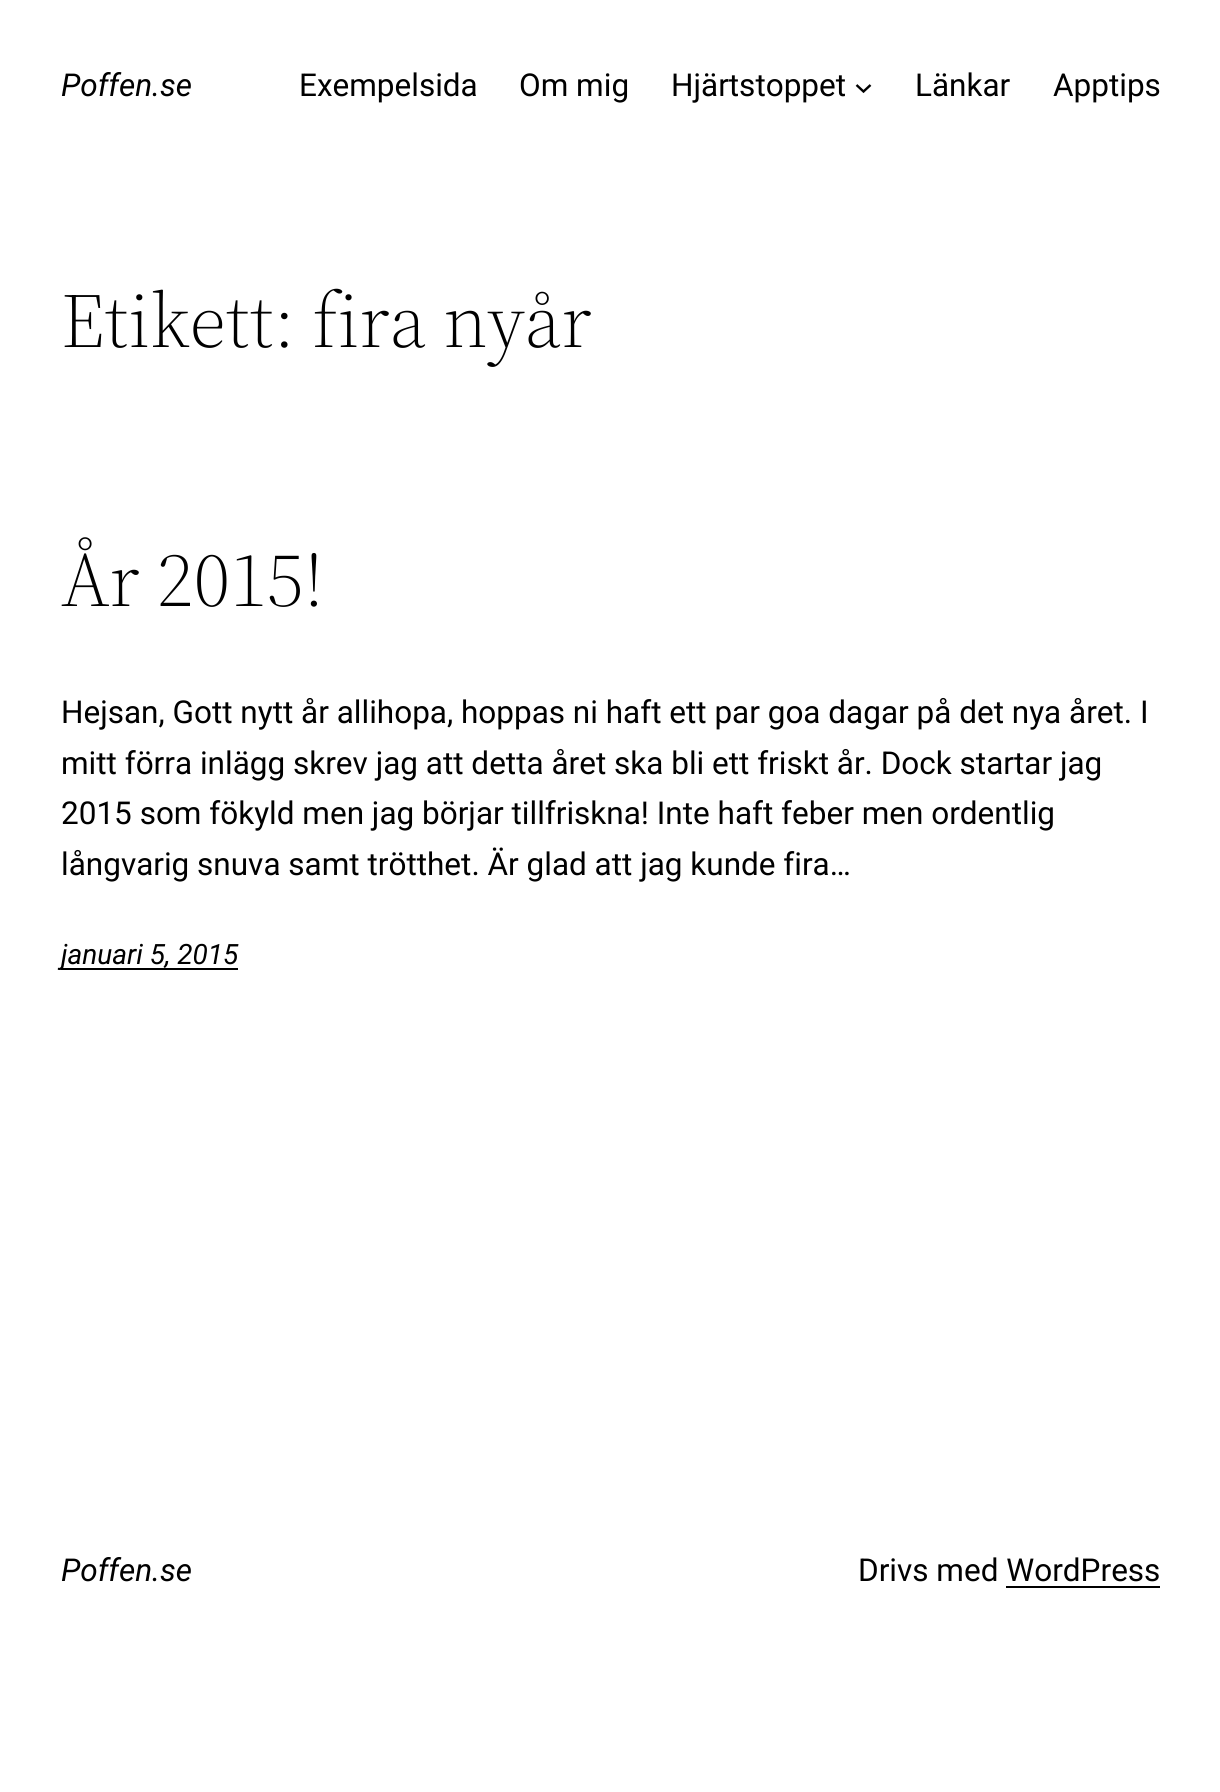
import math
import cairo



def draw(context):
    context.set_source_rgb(1, 1, 1)
    context.paint()
    context.new_path()
    context.move_to(856.5, 85)
    context.line_to(863.5, 91.5)
    context.line_to(870.5, 85)
    context.set_source_rgb(0, 0, 0)
    context.set_line_width(2.4)
    context.stroke()
    context.rectangle(61, 968, 177, 2)
    context.fill()
    context.rectangle(1006, 1586, 154, 2)
    context.fill()
    context.select_font_face("Roboto", cairo.FontSlant.ITALIC)
    context.set_font_size(31.5)
    context.move_to(61, 96)
    context.show_text("Poffen.se")
    context.select_font_face("Roboto")
    context.move_to(299, 96)
    context.show_text("Exempelsida")
    context.move_to(519, 96)
    context.show_text("Om mig")
    context.move_to(671, 96)
    context.show_text("Hjärtstoppet")
    context.move_to(915, 96)
    context.show_text("Länkar")
    context.move_to(1053, 96)
    context.show_text("Apptips")
    context.select_font_face("Source Serif 4 Light")
    context.set_font_size(77)
    context.move_to(61, 347)
    context.show_text("Etikett: fira nyår")
    context.move_to(61, 606)
    context.show_text("År 2015!")
    context.select_font_face("Roboto")
    context.set_font_size(31.5)
    context.move_to(61, 723)
    context.show_text("Hejsan, Gott nytt år allihopa, hoppas ni haft ett par goa dagar på det nya året. I")
    context.move_to(61, 774)
    context.show_text("mitt förra inlägg skrev jag att detta året ska bli ett friskt år. Dock startar jag")
    context.move_to(61, 824)
    context.show_text("2015 som fökyld men jag börjar tillfriskna! Inte haft feber men ordentlig")
    context.move_to(61, 875)
    context.show_text("långvarig snuva samt trötthet. Är glad att jag kunde fira…")
    context.select_font_face("Roboto", cairo.FontSlant.ITALIC)
    context.set_font_size(28)
    context.move_to(61, 964)
    context.show_text("januari 5, 2015")
    context.set_font_size(31.5)
    context.move_to(61, 1581)
    context.show_text("Poffen.se")
    context.select_font_face("Roboto")
    context.move_to(858, 1581)
    context.show_text("Drivs med WordPress")


surface = cairo.ImageSurface(cairo.Format.RGB24, 1220, 1792)
context = cairo.Context(surface)
options = cairo.FontOptions()
options.set_hint_metrics(cairo.HintMetrics.OFF)
options.set_hint_style(cairo.HintStyle.NONE)
context.set_font_options(options)
context.set_miter_limit(4)
draw(context)
surface.write_to_png("out.png")
